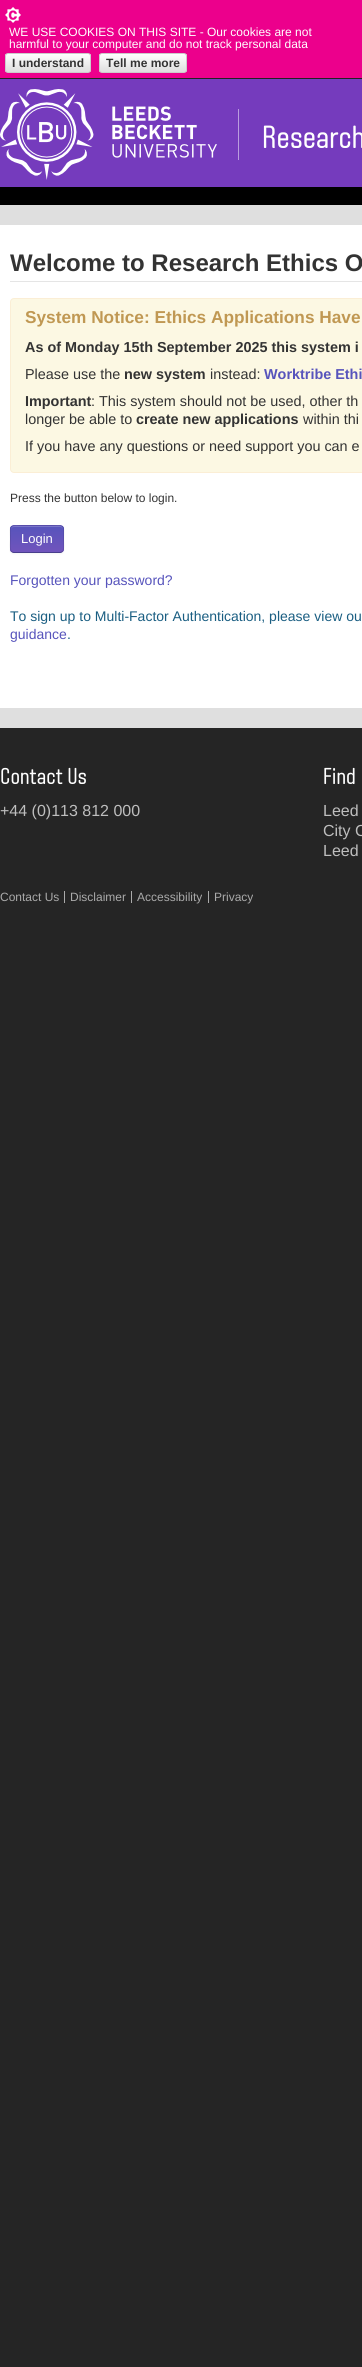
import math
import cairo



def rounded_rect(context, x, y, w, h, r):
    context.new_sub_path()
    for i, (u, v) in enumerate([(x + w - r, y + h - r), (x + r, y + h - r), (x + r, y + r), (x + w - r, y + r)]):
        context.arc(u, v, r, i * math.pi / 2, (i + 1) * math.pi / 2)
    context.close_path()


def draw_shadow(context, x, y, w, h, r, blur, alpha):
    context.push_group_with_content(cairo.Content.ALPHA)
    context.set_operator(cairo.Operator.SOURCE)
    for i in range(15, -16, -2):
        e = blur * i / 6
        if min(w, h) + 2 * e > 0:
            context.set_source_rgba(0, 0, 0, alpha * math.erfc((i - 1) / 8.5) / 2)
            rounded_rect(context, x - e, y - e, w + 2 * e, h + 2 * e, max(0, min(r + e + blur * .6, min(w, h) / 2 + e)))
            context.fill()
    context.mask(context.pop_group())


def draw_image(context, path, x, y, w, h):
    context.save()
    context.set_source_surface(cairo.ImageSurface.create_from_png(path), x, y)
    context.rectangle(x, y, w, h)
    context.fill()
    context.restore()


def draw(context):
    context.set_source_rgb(37 / 255, 37 / 255, 37 / 255)
    context.paint()
    context.set_source_rgb(236 / 255, 0, 140 / 255)
    context.rectangle(0, 0, 362, 78)
    context.fill()
    context.set_source_rgb(34 / 255, 34 / 255, 34 / 255)
    context.rectangle(0, 78, 362, 1)
    context.fill()
    draw_image(context, "images/1.png", 5, 7, 16, 16)
    context.save()
    rounded_rect(context, 5, 53, 86, 20, 3)
    context.clip()
    gradient = cairo.LinearGradient(48, 54, 48, 72)
    gradient.add_color_stop_rgba(0, 1, 1, 1, 1)
    gradient.add_color_stop_rgba(1, 222 / 255, 222 / 255, 222 / 255, 1)
    context.set_source(gradient)
    context.rectangle(5, 54, 86, 18)
    context.fill()
    context.restore()
    rounded_rect(context, 5.5, 53.5, 85, 19, 2.5)
    context.set_source_rgb(204 / 255, 204 / 255, 204 / 255)
    context.set_line_width(1)
    context.stroke()
    context.save()
    rounded_rect(context, 99, 53, 88, 20, 3)
    context.clip()
    gradient = cairo.LinearGradient(143, 54, 143, 72)
    gradient.add_color_stop_rgba(0, 1, 1, 1, 1)
    gradient.add_color_stop_rgba(1, 222 / 255, 222 / 255, 222 / 255, 1)
    context.set_source(gradient)
    context.rectangle(99, 54, 88, 18)
    context.fill()
    context.restore()
    rounded_rect(context, 99.5, 53.5, 87, 19, 2.5)
    context.stroke()
    context.set_source_rgb(117 / 255, 59 / 255, 189 / 255)
    context.rectangle(0, 79, 362, 108)
    context.fill()
    draw_image(context, "images/2.png", 0, 89, 217, 91)
    draw_image(context, "images/3.png", 238, 109, 1, 51)
    context.set_source_rgb(223 / 255, 223 / 255, 223 / 255)
    context.rectangle(0, 205, 362, 523)
    context.fill()
    context.set_source_rgb(0, 0, 0)
    context.rectangle(0, 187, 362, 18)
    context.fill()
    context.set_source_rgb(1, 1, 1)
    context.rectangle(0, 225, 362, 483)
    context.fill()
    context.set_source_rgb(229 / 255, 229 / 255, 229 / 255)
    context.rectangle(10, 281, 352, 1)
    context.fill()
    context.set_source_rgb(252 / 255, 248 / 255, 227 / 255)
    rounded_rect(context, 10.5, 298.5, 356, 174, 3.5)
    context.fill_preserve()
    context.set_source_rgb(251 / 255, 238 / 255, 213 / 255)
    context.stroke()
    context.set_source_rgb(0, 0, 0)
    draw_shadow(context, 10, 526, 54, 28, 4, 1, 0.05)
    context.set_source_rgb(97 / 255, 84 / 255, 188 / 255)
    rounded_rect(context, 10, 525, 54, 28, 4)
    context.fill()
    context.save()
    rounded_rect(context, 10, 525, 54, 28, 4)
    context.clip()
    gradient = cairo.LinearGradient(37, 526, 37, 552)
    gradient.add_color_stop_rgba(0, 87 / 255, 84 / 255, 188 / 255, 1)
    gradient.add_color_stop_rgba(1, 113 / 255, 84 / 255, 188 / 255, 1)
    context.set_source(gradient)
    context.rectangle(10, 526, 54, 26)
    context.fill()
    context.restore()
    context.set_source_rgb(121 / 255, 118 / 255, 201 / 255)
    context.new_path()
    context.move_to(14, 527)
    context.line_to(60, 527)
    context.curve_to(62, 527, 63, 528, 63, 530)
    context.curve_to(63, 524, 57, 526, 52, 526)
    context.line_to(22, 526)
    context.curve_to(17, 526, 11, 524, 11, 530)
    context.curve_to(11, 528, 12, 527, 14, 527)
    context.close_path()
    context.fill()
    context.new_path()
    context.move_to(62.5, 551.5)
    context.curve_to(62, 552, 61, 552.5, 60, 552.5)
    context.line_to(14, 552.5)
    context.curve_to(13, 552.5, 12, 552, 11.5, 551.5)
    context.set_source_rgba(0, 0, 0, 0.25)
    context.stroke()
    context.new_path()
    context.move_to(11.5, 551.5)
    context.curve_to(9.5, 549, 10.5, 541.5, 10.5, 539)
    context.curve_to(10.5, 525.5, 8, 525.5, 21.5, 525.5)
    context.line_to(52.5, 525.5)
    context.curve_to(66, 525.5, 63.5, 525.5, 63.5, 539)
    context.curve_to(63.5, 541.5, 64.5, 549, 62.5, 551.5)
    context.set_source_rgba(0, 0, 0, 0.1)
    context.stroke()
    context.set_source_rgb(170 / 255, 170 / 255, 170 / 255)
    context.rectangle(64, 891, 1, 12)
    context.fill()
    context.rectangle(131, 891, 1, 12)
    context.fill()
    context.rectangle(208, 891, 1, 12)
    context.fill()
    context.select_font_face("Liberation Sans")
    context.set_font_size(12)
    context.set_source_rgb(1, 1, 1)
    context.move_to(9, 36)
    context.show_text("WE USE COOKIES ON THIS SITE - Our cookies are not")
    context.move_to(9, 48)
    context.show_text("harmful to your computer and do not track personal data")
    context.select_font_face("Liberation Sans", cairo.FontSlant.NORMAL, cairo.FontWeight.BOLD)
    context.set_source_rgb(51 / 255, 51 / 255, 51 / 255)
    context.move_to(12, 67)
    context.show_text("I understand")
    context.move_to(106, 67)
    context.show_text("Tell me more")
    context.select_font_face("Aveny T")
    context.set_font_size(32)
    context.set_source_rgb(1, 1, 1)
    context.move_to(262, 148)
    context.show_text("Research")
    context.select_font_face("Liberation Sans", cairo.FontSlant.NORMAL, cairo.FontWeight.BOLD)
    context.set_font_size(24)
    context.set_source_rgb(51 / 255, 51 / 255, 51 / 255)
    context.move_to(10, 271)
    context.show_text("Welcome to Research Ethics O")
    context.set_font_size(17.25)
    context.set_source_rgb(192 / 255, 152 / 255, 83 / 255)
    context.move_to(25, 323)
    context.show_text("System Notice: Ethics Applications Have")
    context.set_font_size(14.4)
    context.set_source_rgb(51 / 255, 51 / 255, 51 / 255)
    context.move_to(25, 352)
    context.show_text("As of Monday 15th September 2025 this system i")
    context.select_font_face("Liberation Sans")
    context.move_to(25, 379)
    context.show_text("Please use the")
    context.select_font_face("Liberation Sans", cairo.FontSlant.NORMAL, cairo.FontWeight.BOLD)
    context.move_to(124, 379)
    context.show_text("new system")
    context.select_font_face("Liberation Sans")
    context.move_to(210, 379)
    context.show_text("instead:")
    context.select_font_face("Liberation Sans", cairo.FontSlant.NORMAL, cairo.FontWeight.BOLD)
    context.set_source_rgb(87 / 255, 84 / 255, 188 / 255)
    context.move_to(264, 379)
    context.show_text("Worktribe Ethi")
    context.set_source_rgb(51 / 255, 51 / 255, 51 / 255)
    context.move_to(25, 406)
    context.show_text("Important")
    context.select_font_face("Liberation Sans")
    context.move_to(91, 406)
    context.show_text(": This system should not be used, other th")
    context.move_to(25, 424)
    context.show_text("longer be able to")
    context.select_font_face("Liberation Sans", cairo.FontSlant.NORMAL, cairo.FontWeight.BOLD)
    context.move_to(136, 424)
    context.show_text("create new applications")
    context.select_font_face("Liberation Sans")
    context.move_to(303, 424)
    context.show_text("within thi")
    context.move_to(25, 451)
    context.show_text("If you have any questions or need support you can e")
    context.set_font_size(12)
    context.move_to(10, 502)
    context.show_text("Press the button below to login.")
    context.set_font_size(13)
    context.set_source_rgb(1, 1, 1)
    context.move_to(21, 543)
    context.show_text("Login")
    context.set_font_size(14)
    context.set_source_rgb(87 / 255, 84 / 255, 188 / 255)
    context.move_to(10, 585)
    context.show_text("Forgotten your password?")
    context.set_source_rgb(26 / 255, 94 / 255, 130 / 255)
    context.move_to(10, 621)
    context.show_text("To sign up to Multi-Factor Authentication, please view ou")
    context.set_source_rgb(87 / 255, 84 / 255, 188 / 255)
    context.move_to(10, 639)
    context.show_text("guidance")
    context.set_source_rgb(26 / 255, 94 / 255, 130 / 255)
    context.move_to(67, 639)
    context.show_text(".")
    context.select_font_face("Aveny T")
    context.set_font_size(23)
    context.set_source_rgb(1, 1, 1)
    context.move_to(0, 784)
    context.show_text("Contact Us")
    context.select_font_face("Liberation Sans")
    context.set_font_size(16)
    context.set_source_rgb(190 / 255, 190 / 255, 190 / 255)
    context.move_to(0, 816)
    context.show_text("+44 (0)113 812 000")
    context.select_font_face("Aveny T")
    context.set_font_size(23)
    context.set_source_rgb(1, 1, 1)
    context.move_to(323, 784)
    context.show_text("Find")
    context.select_font_face("Liberation Sans")
    context.set_font_size(16)
    context.set_source_rgb(190 / 255, 190 / 255, 190 / 255)
    context.move_to(323, 816)
    context.show_text("Leed")
    context.move_to(323, 836)
    context.show_text("City C")
    context.move_to(323, 856)
    context.show_text("Leed")
    context.set_font_size(12)
    context.set_source_rgb(170 / 255, 170 / 255, 170 / 255)
    context.move_to(0, 901)
    context.show_text("Contact Us")
    context.move_to(70, 901)
    context.show_text("Disclaimer")
    context.move_to(137, 901)
    context.show_text("Accessibility")
    context.move_to(214, 901)
    context.show_text("Privacy")


surface = cairo.ImageSurface(cairo.Format.RGB24, 362, 2367)
context = cairo.Context(surface)
options = cairo.FontOptions()
options.set_hint_metrics(cairo.HintMetrics.OFF)
options.set_hint_style(cairo.HintStyle.NONE)
context.set_font_options(options)
context.set_miter_limit(4)
draw(context)
surface.write_to_png("out.png")
